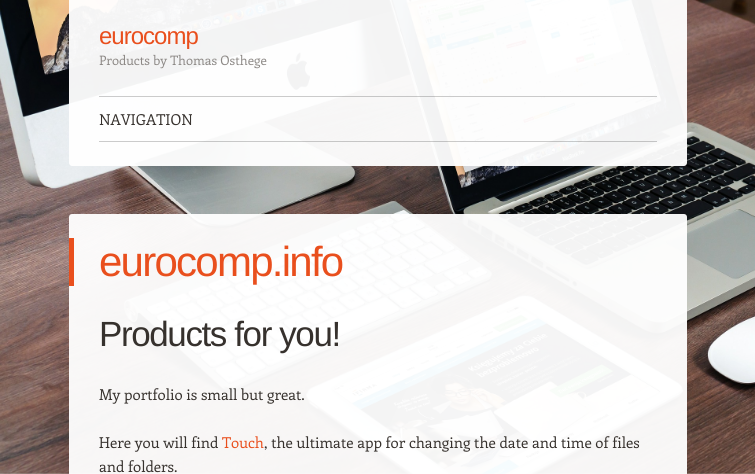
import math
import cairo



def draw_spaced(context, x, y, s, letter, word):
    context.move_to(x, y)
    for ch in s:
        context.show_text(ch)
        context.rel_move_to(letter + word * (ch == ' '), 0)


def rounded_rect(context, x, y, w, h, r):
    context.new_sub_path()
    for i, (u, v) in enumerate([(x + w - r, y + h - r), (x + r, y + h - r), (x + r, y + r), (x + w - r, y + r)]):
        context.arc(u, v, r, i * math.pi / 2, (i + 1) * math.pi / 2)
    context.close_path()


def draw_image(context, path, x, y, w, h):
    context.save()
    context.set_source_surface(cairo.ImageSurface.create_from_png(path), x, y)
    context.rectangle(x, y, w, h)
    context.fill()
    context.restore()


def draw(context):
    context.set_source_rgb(1, 1, 1)
    context.paint()
    draw_image(context, "images/1.png", 0, 0, 755, 474)
    context.set_source_rgba(1, 1, 1, 0.95)
    context.new_path()
    context.move_to(69, 0)
    context.line_to(687, 0)
    context.line_to(687, 163)
    context.curve_to(687, 164.5, 685.5, 166, 684, 166)
    context.line_to(72, 166)
    context.curve_to(70.5, 166, 69, 164.5, 69, 163)
    context.close_path()
    context.fill()
    context.set_source_rgba(0, 0, 0, 0.2)
    context.rectangle(99, 96, 558, 1)
    context.fill()
    context.rectangle(99, 141, 558, 1)
    context.fill()
    context.set_source_rgba(1, 1, 1, 0.95)
    rounded_rect(context, 69, 214, 618, 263, 3)
    context.fill()
    context.set_source_rgb(233 / 255, 79 / 255, 29 / 255)
    context.rectangle(69, 238, 5, 48)
    context.fill()
    context.select_font_face("Liberation Sans")
    context.set_font_size(24)
    draw_spaced(context, 99, 44, "eurocomp", -1, 0)
    context.select_font_face("Enriqueta")
    context.set_font_size(13)
    context.set_source_rgb(140 / 255, 136 / 255, 133 / 255)
    context.move_to(99, 65)
    context.show_text("Products by Thomas Osthege")
    context.set_font_size(15)
    context.set_source_rgb(54 / 255, 49 / 255, 45 / 255)
    context.move_to(99, 125)
    context.show_text("NAVIGATION")
    context.select_font_face("Liberation Sans")
    context.set_font_size(42)
    context.set_source_rgb(233 / 255, 79 / 255, 29 / 255)
    draw_spaced(context, 99, 276, "eurocomp.info", -1.75, 0)
    context.set_font_size(35)
    context.set_source_rgb(54 / 255, 49 / 255, 45 / 255)
    draw_spaced(context, 99, 346, "Products for you!", -1.4, 0)
    context.select_font_face("Enriqueta")
    context.set_font_size(15)
    context.move_to(99, 400)
    context.show_text("My portfolio is small but great.")
    context.move_to(99, 448)
    context.show_text("Here you will find")
    context.set_source_rgb(233 / 255, 79 / 255, 29 / 255)
    context.move_to(222, 448)
    context.show_text("Touch")
    context.set_source_rgb(54 / 255, 49 / 255, 45 / 255)
    context.move_to(264, 448)
    context.show_text(", the ultimate app for changing the date and time of files")
    context.move_to(99, 472)
    context.show_text("and folders.")


surface = cairo.ImageSurface(cairo.Format.RGB24, 755, 474)
context = cairo.Context(surface)
options = cairo.FontOptions()
options.set_hint_metrics(cairo.HintMetrics.OFF)
options.set_hint_style(cairo.HintStyle.NONE)
context.set_font_options(options)
context.set_miter_limit(4)
draw(context)
surface.write_to_png("out.png")
